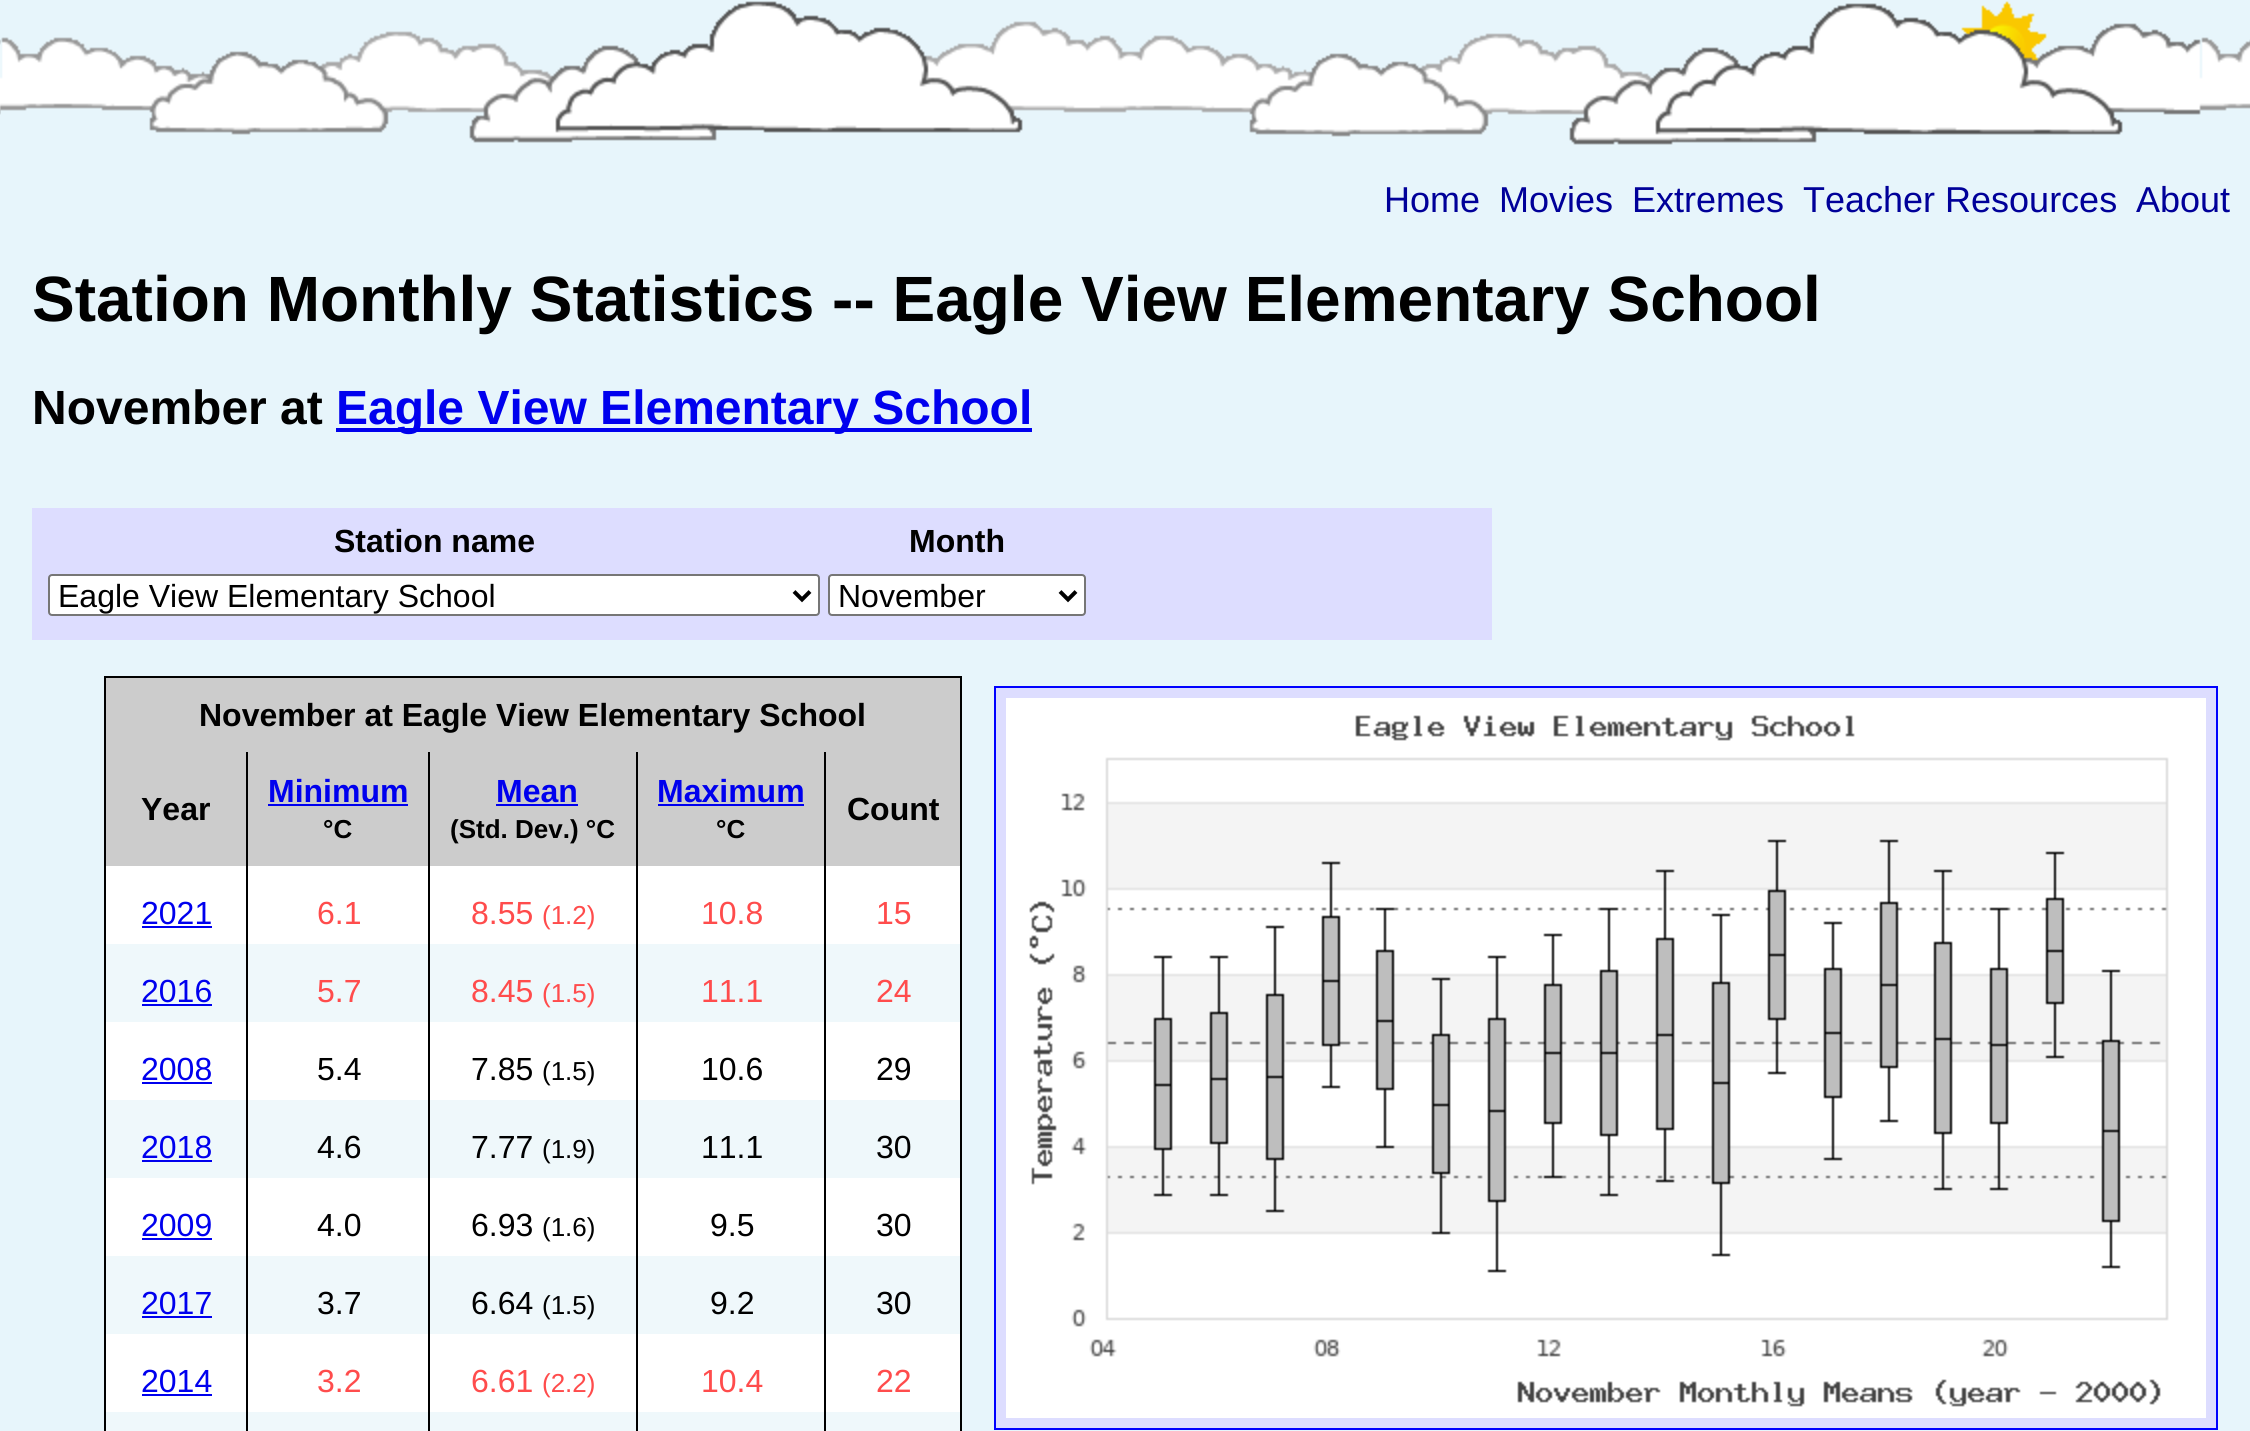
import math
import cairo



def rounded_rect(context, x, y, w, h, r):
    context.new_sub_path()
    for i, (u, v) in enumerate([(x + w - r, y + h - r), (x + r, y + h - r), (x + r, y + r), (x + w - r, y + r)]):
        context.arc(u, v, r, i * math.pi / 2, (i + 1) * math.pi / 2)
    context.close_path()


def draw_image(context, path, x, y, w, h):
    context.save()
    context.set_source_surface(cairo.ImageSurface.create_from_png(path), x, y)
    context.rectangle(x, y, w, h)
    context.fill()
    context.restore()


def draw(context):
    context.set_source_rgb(231 / 255, 245 / 255, 251 / 255)
    context.paint()
    draw_image(context, "images/2.png", 1961, 1, 86, 60)
    draw_image(context, "images/1.png", 0, 1, 2250, 144)
    context.set_source_rgb(0, 0, 238 / 255)
    context.rectangle(336, 428, 696, 4)
    context.fill()
    context.set_source_rgb(221 / 255, 221 / 255, 1)
    context.rectangle(32, 508, 1460, 132)
    context.fill()
    context.set_source_rgb(1, 1, 1)
    rounded_rect(context, 49, 575, 770, 40, 3)
    context.fill_preserve()
    context.set_source_rgb(118 / 255, 118 / 255, 118 / 255)
    context.stroke()
    context.new_path()
    context.move_to(794, 591.5)
    context.line_to(802, 599.5)
    context.line_to(810, 591.5)
    context.set_source_rgb(0, 0, 0)
    context.set_line_width(4)
    context.stroke()
    context.set_source_rgb(1, 1, 1)
    rounded_rect(context, 829, 575, 256, 40, 3)
    context.fill_preserve()
    context.set_source_rgb(118 / 255, 118 / 255, 118 / 255)
    context.set_line_width(2)
    context.stroke()
    context.new_path()
    context.move_to(1060, 591.5)
    context.line_to(1068, 599.5)
    context.line_to(1076, 591.5)
    context.set_source_rgb(0, 0, 0)
    context.set_line_width(4)
    context.stroke()
    context.rectangle(104, 676, 858, 2)
    context.fill()
    context.rectangle(960, 676, 2, 755)
    context.fill()
    context.rectangle(104, 676, 2, 755)
    context.fill()
    context.set_source_rgb(204 / 255, 204 / 255, 204 / 255)
    context.rectangle(106, 678, 854, 188)
    context.fill()
    context.set_source_rgb(0, 0, 238 / 255)
    context.rectangle(268, 804, 140, 2)
    context.fill()
    context.rectangle(496, 804, 82, 2)
    context.fill()
    context.rectangle(658, 804, 146, 2)
    context.fill()
    context.set_source_rgb(239 / 255, 248 / 255, 251 / 255)
    context.rectangle(106, 1412, 854, 19)
    context.fill()
    context.set_source_rgb(1, 1, 1)
    context.rectangle(106, 866, 854, 78)
    context.fill()
    context.set_source_rgb(239 / 255, 248 / 255, 251 / 255)
    context.rectangle(106, 944, 854, 78)
    context.fill()
    context.set_source_rgb(1, 1, 1)
    context.rectangle(106, 1022, 854, 78)
    context.fill()
    context.set_source_rgb(239 / 255, 248 / 255, 251 / 255)
    context.rectangle(106, 1100, 854, 78)
    context.fill()
    context.set_source_rgb(1, 1, 1)
    context.rectangle(106, 1178, 854, 78)
    context.fill()
    context.set_source_rgb(239 / 255, 248 / 255, 251 / 255)
    context.rectangle(106, 1256, 854, 78)
    context.fill()
    context.set_source_rgb(1, 1, 1)
    context.rectangle(106, 1334, 854, 78)
    context.fill()
    context.set_source_rgb(0, 0, 0)
    context.rectangle(246, 752, 2, 679)
    context.fill()
    context.rectangle(428, 752, 2, 679)
    context.fill()
    context.rectangle(636, 752, 2, 679)
    context.fill()
    context.rectangle(824, 752, 2, 679)
    context.fill()
    context.set_source_rgb(0, 0, 238 / 255)
    context.rectangle(142, 926, 70, 2)
    context.fill()
    context.rectangle(142, 1004, 70, 2)
    context.fill()
    context.rectangle(142, 1082, 70, 2)
    context.fill()
    context.rectangle(142, 1160, 70, 2)
    context.fill()
    context.rectangle(142, 1238, 70, 2)
    context.fill()
    context.rectangle(142, 1316, 70, 2)
    context.fill()
    context.rectangle(142, 1394, 70, 2)
    context.fill()
    context.set_source_rgb(221 / 255, 221 / 255, 1)
    context.rectangle(995, 687, 1222, 742)
    context.fill_preserve()
    context.set_source_rgb(0, 0, 1)
    context.set_line_width(2)
    context.stroke()
    draw_image(context, "images/3.png", 1006, 698, 1200, 720)
    context.select_font_face("Liberation Sans")
    context.set_font_size(36)
    context.set_source_rgb(0, 0, 153 / 255)
    context.move_to(1384, 212)
    context.show_text("Home")
    context.move_to(1499, 212)
    context.show_text("Movies")
    context.move_to(1632, 212)
    context.show_text("Extremes")
    context.move_to(1803, 212)
    context.show_text("Teacher Resources")
    context.move_to(2136, 212)
    context.show_text("About")
    context.select_font_face("Liberation Sans", cairo.FontSlant.NORMAL, cairo.FontWeight.BOLD)
    context.set_font_size(64)
    context.set_source_rgb(0, 0, 0)
    context.move_to(32, 321)
    context.show_text("Station Monthly Statistics -- Eagle View Elementary School")
    context.set_font_size(48)
    context.move_to(32, 424)
    context.show_text("November at")
    context.set_source_rgb(0, 0, 238 / 255)
    context.move_to(336, 424)
    context.show_text("Eagle View Elementary School")
    context.set_font_size(32)
    context.set_source_rgb(0, 0, 0)
    context.move_to(334, 552)
    context.show_text("Station name")
    context.move_to(909, 552)
    context.show_text("Month")
    context.select_font_face("Liberation Sans")
    context.move_to(58, 607)
    context.show_text("Eagle View Elementary School")
    context.move_to(838, 607)
    context.show_text("November")
    context.select_font_face("Liberation Sans", cairo.FontSlant.NORMAL, cairo.FontWeight.BOLD)
    context.move_to(199, 726)
    context.show_text("November at Eagle View Elementary School")
    context.move_to(141, 820)
    context.show_text("Year")
    context.set_source_rgb(0, 0, 238 / 255)
    context.move_to(268, 802)
    context.show_text("Minimum")
    context.set_font_size(26)
    context.set_source_rgb(0, 0, 0)
    context.move_to(323, 838)
    context.show_text("°C")
    context.set_font_size(32)
    context.set_source_rgb(0, 0, 238 / 255)
    context.move_to(496, 802)
    context.show_text("Mean")
    context.set_font_size(26)
    context.set_source_rgb(0, 0, 0)
    context.move_to(450, 838)
    context.show_text("(Std. Dev.) °C")
    context.set_font_size(32)
    context.set_source_rgb(0, 0, 238 / 255)
    context.move_to(657, 802)
    context.show_text("Maximum")
    context.set_font_size(26)
    context.set_source_rgb(0, 0, 0)
    context.move_to(716, 838)
    context.show_text("°C")
    context.set_font_size(32)
    context.move_to(847, 820)
    context.show_text("Count")
    context.select_font_face("Liberation Sans")
    context.set_source_rgb(0, 0, 238 / 255)
    context.move_to(141, 924)
    context.show_text("2021")
    context.set_source_rgb(1, 76 / 255, 76 / 255)
    context.move_to(317, 924)
    context.show_text("6.1")
    context.move_to(471, 924)
    context.show_text("8.55")
    context.set_font_size(26)
    context.move_to(542, 924)
    context.show_text("(1.2)")
    context.set_font_size(32)
    context.move_to(701, 924)
    context.show_text("10.8")
    context.move_to(876, 924)
    context.show_text("15")
    context.set_source_rgb(0, 0, 238 / 255)
    context.move_to(141, 1002)
    context.show_text("2016")
    context.set_source_rgb(1, 76 / 255, 76 / 255)
    context.move_to(317, 1002)
    context.show_text("5.7")
    context.move_to(471, 1002)
    context.show_text("8.45")
    context.set_font_size(26)
    context.move_to(542, 1002)
    context.show_text("(1.5)")
    context.set_font_size(32)
    context.move_to(701, 1002)
    context.show_text("11.1")
    context.move_to(876, 1002)
    context.show_text("24")
    context.set_source_rgb(0, 0, 238 / 255)
    context.move_to(141, 1080)
    context.show_text("2008")
    context.set_source_rgb(0, 0, 0)
    context.move_to(317, 1080)
    context.show_text("5.4")
    context.move_to(471, 1080)
    context.show_text("7.85")
    context.set_font_size(26)
    context.move_to(542, 1080)
    context.show_text("(1.5)")
    context.set_font_size(32)
    context.move_to(701, 1080)
    context.show_text("10.6")
    context.move_to(876, 1080)
    context.show_text("29")
    context.set_source_rgb(0, 0, 238 / 255)
    context.move_to(141, 1158)
    context.show_text("2018")
    context.set_source_rgb(0, 0, 0)
    context.move_to(317, 1158)
    context.show_text("4.6")
    context.move_to(471, 1158)
    context.show_text("7.77")
    context.set_font_size(26)
    context.move_to(542, 1158)
    context.show_text("(1.9)")
    context.set_font_size(32)
    context.move_to(701, 1158)
    context.show_text("11.1")
    context.move_to(876, 1158)
    context.show_text("30")
    context.set_source_rgb(0, 0, 238 / 255)
    context.move_to(141, 1236)
    context.show_text("2009")
    context.set_source_rgb(0, 0, 0)
    context.move_to(317, 1236)
    context.show_text("4.0")
    context.move_to(471, 1236)
    context.show_text("6.93")
    context.set_font_size(26)
    context.move_to(542, 1236)
    context.show_text("(1.6)")
    context.set_font_size(32)
    context.move_to(710, 1236)
    context.show_text("9.5")
    context.move_to(876, 1236)
    context.show_text("30")
    context.set_source_rgb(0, 0, 238 / 255)
    context.move_to(141, 1314)
    context.show_text("2017")
    context.set_source_rgb(0, 0, 0)
    context.move_to(317, 1314)
    context.show_text("3.7")
    context.move_to(471, 1314)
    context.show_text("6.64")
    context.set_font_size(26)
    context.move_to(542, 1314)
    context.show_text("(1.5)")
    context.set_font_size(32)
    context.move_to(710, 1314)
    context.show_text("9.2")
    context.move_to(876, 1314)
    context.show_text("30")
    context.set_source_rgb(0, 0, 238 / 255)
    context.move_to(141, 1392)
    context.show_text("2014")
    context.set_source_rgb(1, 76 / 255, 76 / 255)
    context.move_to(317, 1392)
    context.show_text("3.2")
    context.move_to(471, 1392)
    context.show_text("6.61")
    context.set_font_size(26)
    context.move_to(542, 1392)
    context.show_text("(2.2)")
    context.set_font_size(32)
    context.move_to(701, 1392)
    context.show_text("10.4")
    context.move_to(876, 1392)
    context.show_text("22")


surface = cairo.ImageSurface(cairo.Format.RGB24, 2250, 1431)
context = cairo.Context(surface)
options = cairo.FontOptions()
options.set_hint_metrics(cairo.HintMetrics.OFF)
options.set_hint_style(cairo.HintStyle.NONE)
context.set_font_options(options)
context.set_miter_limit(4)
draw(context)
surface.write_to_png("out.png")
